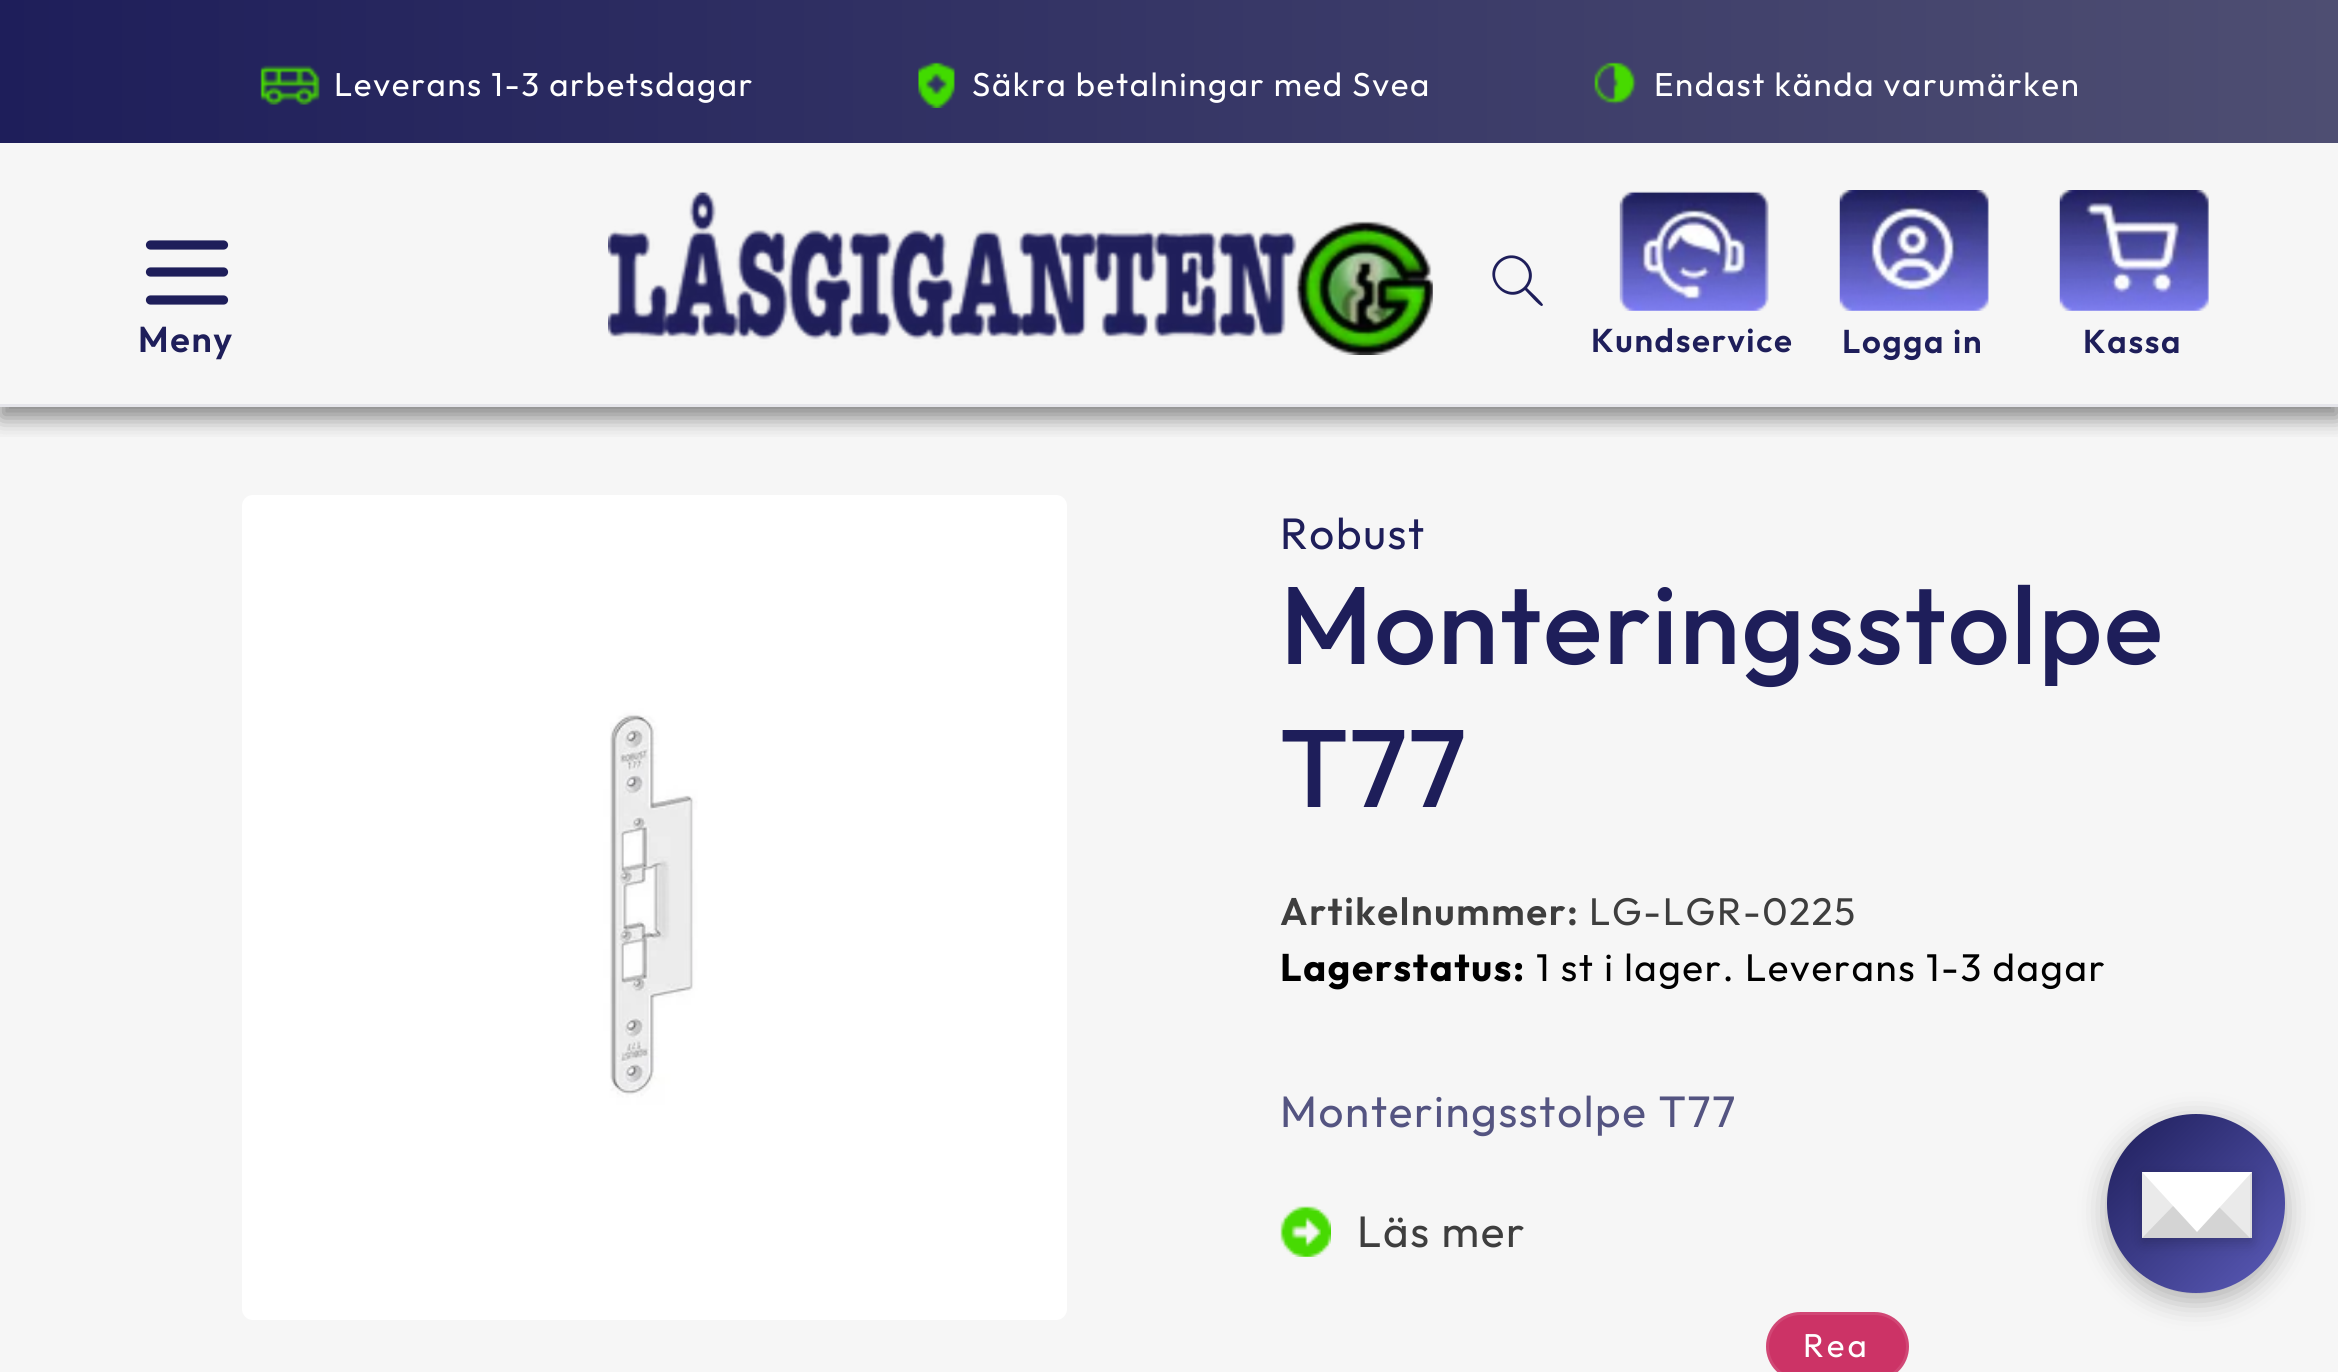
import math
import cairo



def draw_spaced(context, x, y, s, letter, word):
    context.move_to(x, y)
    for ch in s:
        context.show_text(ch)
        context.rel_move_to(letter + word * (ch == ' '), 0)


def rounded_rect(context, x, y, w, h, r):
    context.new_sub_path()
    for i, (u, v) in enumerate([(x + w - r, y + h - r), (x + r, y + h - r), (x + r, y + r), (x + w - r, y + r)]):
        context.arc(u, v, r, i * math.pi / 2, (i + 1) * math.pi / 2)
    context.close_path()


def draw_shadow(context, x, y, w, h, r, blur, alpha):
    context.push_group_with_content(cairo.Content.ALPHA)
    context.set_operator(cairo.Operator.SOURCE)
    for i in range(15, -16, -2):
        e = blur * i / 6
        if min(w, h) + 2 * e > 0:
            context.set_source_rgba(0, 0, 0, alpha * math.erfc((i - 1) / 8.5) / 2)
            rounded_rect(context, x - e, y - e, w + 2 * e, h + 2 * e, max(0, min(r + e + blur * .6, min(w, h) / 2 + e)))
            context.fill()
    context.mask(context.pop_group())


def draw_image(context, path, x, y, w, h):
    context.save()
    context.set_source_surface(cairo.ImageSurface.create_from_png(path), x, y)
    context.rectangle(x, y, w, h)
    context.fill()
    context.restore()


def draw(context):
    context.set_source_rgb(246 / 255, 246 / 255, 246 / 255)
    context.paint()
    context.save()
    context.rectangle(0, 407, 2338, 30)
    context.clip()
    context.set_source_rgb(0, 0, 0)
    draw_shadow(context, 0, 154, 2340, 264, 0, 11, 0.46)
    context.restore()
    gradient = cairo.LinearGradient(0, 72, 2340, 71)
    gradient.add_color_stop_rgba(0, 30 / 255, 30 / 255, 90 / 255, 1)
    gradient.add_color_stop_rgba(1, 78 / 255, 78 / 255, 114 / 255, 1)
    context.set_source(gradient)
    context.rectangle(0, 0, 2338, 143)
    context.fill()
    draw_image(context, "images/1.png", 260, 65, 60, 40)
    draw_image(context, "images/2.png", 918, 62, 37, 46)
    draw_image(context, "images/3.png", 1594, 62, 43, 43)
    context.set_source_rgb(229 / 255, 229 / 255, 234 / 255)
    context.rectangle(0, 404, 2338, 3)
    context.fill()
    context.new_path()
    context.move_to(150.5, 300)
    context.line_to(223.5, 300)
    context.set_source_rgb(30 / 255, 30 / 255, 90 / 255)
    context.set_line_width(9.2)
    context.set_line_cap(cairo.LineCap.ROUND)
    context.stroke()
    context.new_path()
    context.move_to(150.5, 272)
    context.line_to(223.5, 272)
    context.stroke()
    context.new_path()
    context.move_to(150.5, 245)
    context.line_to(223.5, 245)
    context.stroke()
    draw_image(context, "images/4.png", 608, 191, 825, 164)
    context.set_fill_rule(cairo.FillRule.EVEN_ODD)
    context.new_path()
    context.move_to(1524, 287)
    context.curve_to(1508, 302, 1485, 279, 1500, 263)
    context.curve_to(1516, 248, 1539, 271, 1524, 287)
    context.close_path()
    context.move_to(1525, 290)
    context.curve_to(1506, 306, 1481, 278, 1498, 261)
    context.curve_to(1516, 244, 1543, 269, 1527, 288)
    context.curve_to(1529, 290, 1543, 303, 1543, 305)
    context.line_to(1542, 306)
    context.curve_to(1540, 307, 1527, 292, 1525, 290)
    context.close_path()
    context.fill()
    draw_image(context, "images/5.png", 1619, 191, 150, 120)
    draw_image(context, "images/6.png", 1839, 190, 150, 121)
    draw_image(context, "images/7.png", 2059, 190, 150, 121)
    draw_image(context, "images/8.png", 242, 495, 825, 825)
    draw_image(context, "images/9.png", 1280, 1206, 51, 51)
    context.set_source_rgb(204 / 255, 51 / 255, 102 / 255)
    rounded_rect(context, 1766, 1312, 143, 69, 34.5)
    context.fill()
    rounded_rect(context, 1767.5, 1313.5, 140, 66, 33)
    context.set_source_rgba(1, 1, 1, 0.1)
    context.set_line_width(3)
    context.set_line_cap(cairo.LineCap.BUTT)
    context.stroke()
    context.set_source_rgb(0, 0, 0)
    draw_shadow(context, 2107, 1122, 178, 179, 89, 14, 0.3)
    gradient = cairo.LinearGradient(2107, 1114, 2285, 1293)
    gradient.add_color_stop_rgba(0, 30 / 255, 30 / 255, 90 / 255, 1)
    gradient.add_color_stop_rgba(1, 91 / 255, 91 / 255, 185 / 255, 1)
    context.set_source(gradient)
    rounded_rect(context, 2107, 1114, 178, 179, 89)
    context.fill()
    context.set_source_rgb(0, 0, 0)
    draw_shadow(context, 2142, 1177, 110, 66, 0, 7, 0.2)
    context.set_source_rgb(221 / 255, 221 / 255, 221 / 255)
    context.rectangle(2142, 1172, 110, 66)
    context.fill()
    context.set_source_rgb(212 / 255, 212 / 255, 212 / 255)
    context.set_fill_rule(cairo.FillRule.WINDING)
    context.new_path()
    context.move_to(2252, 1238)
    context.line_to(2142, 1238)
    context.line_to(2197, 1177)
    context.close_path()
    context.fill()
    context.set_source_rgb(234 / 255, 234 / 255, 234 / 255)
    context.new_path()
    context.move_to(2142, 1238)
    context.line_to(2142, 1172)
    context.line_to(2175, 1204)
    context.close_path()
    context.fill()
    context.new_path()
    context.move_to(2250, 1172)
    context.line_to(2250, 1238)
    context.line_to(2216, 1204)
    context.close_path()
    context.fill()
    context.set_source_rgb(1, 1, 1)
    context.new_path()
    context.move_to(2142, 1172)
    context.line_to(2252, 1172)
    context.line_to(2197, 1232)
    context.close_path()
    context.fill()
    context.select_font_face("Outfit")
    context.set_font_size(33)
    draw_spaced(context, 334, 96, "Leverans 1-3 arbetsdagar", 1.65, 0)
    draw_spaced(context, 972, 96, "Säkra betalningar med Svea", 1.65, 0)
    draw_spaced(context, 1654, 96, "Endast kända varumärken", 1.65, 0)
    context.select_font_face("Outfit SemiBold")
    context.set_font_size(36)
    context.set_source_rgb(30 / 255, 30 / 255, 90 / 255)
    draw_spaced(context, 138, 352, "Meny", 1.65, 0)
    context.set_font_size(33)
    draw_spaced(context, 1591, 352, "Kundservice", 1.65, 0)
    draw_spaced(context, 1842, 353, "Logga in", 1.65, 0)
    draw_spaced(context, 2083, 353, "Kassa", 1.65, 0)
    context.select_font_face("Outfit")
    context.set_font_size(44)
    draw_spaced(context, 1280, 549, "Robust", 1.65, 0)
    context.select_font_face("Outfit Medium")
    context.set_font_size(110)
    draw_spaced(context, 1280, 664, "Monteringsstolpe", 1.65, 0)
    draw_spaced(context, 1280, 807, "T77", 1.65, 0)
    context.select_font_face("Outfit SemiBold")
    context.set_font_size(38.5)
    context.set_source_rgb(62 / 255, 62 / 255, 62 / 255)
    draw_spaced(context, 1280, 925, "Artikelnummer:", 1.65, 0)
    context.select_font_face("Outfit")
    draw_spaced(context, 1589, 925, "LG-LGR-0225", 1.65, 0)
    context.select_font_face("Outfit", cairo.FontSlant.NORMAL, cairo.FontWeight.BOLD)
    context.set_source_rgb(0, 0, 0)
    draw_spaced(context, 1280, 981, "Lagerstatus:", 1.65, 0)
    context.select_font_face("Outfit")
    draw_spaced(context, 1536, 981, "1 st i lager. Leverans 1-3 dagar", 1.65, 0)
    context.set_font_size(44)
    context.set_source_rgb(84 / 255, 84 / 255, 129 / 255)
    draw_spaced(context, 1280, 1127, "Monteringsstolpe T77", 1.65, 0)
    context.set_source_rgb(62 / 255, 62 / 255, 62 / 255)
    draw_spaced(context, 1357, 1247, "Läs mer", 1.65, 0)
    context.set_font_size(33)
    context.set_source_rgb(1, 1, 1)
    draw_spaced(context, 1803, 1357, "Rea", 3, 0)


surface = cairo.ImageSurface(cairo.Format.RGB24, 2338, 1372)
context = cairo.Context(surface)
options = cairo.FontOptions()
options.set_hint_metrics(cairo.HintMetrics.OFF)
options.set_hint_style(cairo.HintStyle.NONE)
context.set_font_options(options)
context.set_miter_limit(4)
draw(context)
surface.write_to_png("out.png")
